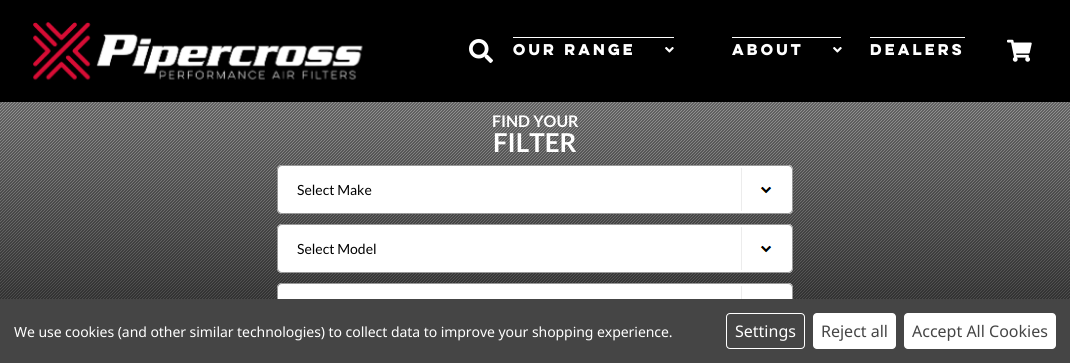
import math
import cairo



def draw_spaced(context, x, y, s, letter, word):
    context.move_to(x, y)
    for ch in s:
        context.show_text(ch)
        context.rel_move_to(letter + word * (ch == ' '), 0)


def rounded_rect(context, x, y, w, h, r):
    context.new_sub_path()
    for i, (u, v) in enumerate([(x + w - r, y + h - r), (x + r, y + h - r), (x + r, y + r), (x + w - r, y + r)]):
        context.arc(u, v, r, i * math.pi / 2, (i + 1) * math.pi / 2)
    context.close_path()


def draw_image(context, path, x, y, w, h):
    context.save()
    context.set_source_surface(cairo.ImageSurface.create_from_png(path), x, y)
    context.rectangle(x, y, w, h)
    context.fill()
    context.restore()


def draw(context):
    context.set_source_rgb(99 / 255, 99 / 255, 99 / 255)
    context.paint()
    context.set_source_rgb(0, 0, 0)
    context.rectangle(0, 0, 1070, 102)
    context.fill()
    draw_image(context, "images/1.png", 33, 22, 330, 59)
    draw_image(context, "images/2.png", 469, 39, 24, 24)
    context.set_source_rgb(1, 1, 1)
    context.rectangle(513, 37, 161, 1)
    context.fill()
    draw_image(context, "images/3.png", 665, 47, 9, 6)
    context.rectangle(732, 37, 109, 1)
    context.fill()
    draw_image(context, "images/3.png", 833, 47, 9, 6)
    context.rectangle(870, 37, 95, 1)
    context.fill()
    draw_image(context, "images/4.png", 1007, 39, 25, 23)
    draw_image(context, "images/5.png", 0, 102, 1070, 197)
    rounded_rect(context, 277, 165, 516, 49, 5)
    context.fill()
    draw_image(context, "images/6.png", 741, 165, 51, 49)
    rounded_rect(context, 277.5, 165.5, 515, 48, 4.5)
    context.set_source_rgb(153 / 255, 153 / 255, 153 / 255)
    context.set_line_width(1)
    context.stroke()
    context.set_source_rgb(1, 1, 1)
    rounded_rect(context, 277, 224, 516, 49, 5)
    context.fill()
    draw_image(context, "images/7.png", 741, 224, 51, 49)
    rounded_rect(context, 277.5, 224.5, 515, 48, 4.5)
    context.set_source_rgb(153 / 255, 153 / 255, 153 / 255)
    context.stroke()
    context.set_source_rgb(1, 1, 1)
    rounded_rect(context, 277, 283, 516, 49, 5)
    context.fill()
    draw_image(context, "images/8.png", 741, 283, 51, 16)
    rounded_rect(context, 277.5, 283.5, 515, 48, 4.5)
    context.set_source_rgb(153 / 255, 153 / 255, 153 / 255)
    context.stroke()
    context.set_source_rgb(69 / 255, 69 / 255, 69 / 255)
    context.rectangle(0, 299, 1070, 64)
    context.fill()
    rounded_rect(context, 726.5, 313.5, 78, 35, 3.5)
    context.set_source_rgb(1, 1, 1)
    context.stroke()
    rounded_rect(context, 813, 313, 83, 36, 4)
    context.fill()
    rounded_rect(context, 904, 313, 152, 36, 4)
    context.fill()
    context.select_font_face("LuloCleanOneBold", cairo.FontSlant.NORMAL, cairo.FontWeight.BOLD)
    context.set_font_size(14)
    context.move_to(513, 55)
    context.show_text("OUR RANGE")
    context.move_to(732, 55)
    context.show_text("ABOUT")
    context.move_to(870, 55)
    context.show_text("DEALERS")
    context.select_font_face("Lato", cairo.FontSlant.NORMAL, cairo.FontWeight.BOLD)
    context.set_font_size(16)
    context.move_to(492, 127)
    context.show_text("FIND YOUR")
    context.set_font_size(26)
    context.move_to(493, 152)
    context.show_text("FILTER")
    context.select_font_face("Lato")
    context.set_font_size(14)
    context.set_source_rgb(0, 0, 0)
    context.move_to(297, 195)
    context.show_text("Select Make")
    context.move_to(297, 254)
    context.show_text("Select Model")
    context.select_font_face("Noto Sans")
    context.set_source_rgb(1, 1, 1)
    draw_spaced(context, 14, 337, "We use cookies (and other similar technologies) to collect data to improve your shopping experience.", -0.05, 0)
    context.set_font_size(16)
    context.move_to(735, 337)
    context.show_text("Settings")
    context.set_source_rgb(69 / 255, 69 / 255, 69 / 255)
    context.move_to(821, 337)
    context.show_text("Reject all")
    context.move_to(912, 337)
    context.show_text("Accept All Cookies")


surface = cairo.ImageSurface(cairo.Format.RGB24, 1070, 363)
context = cairo.Context(surface)
options = cairo.FontOptions()
options.set_hint_metrics(cairo.HintMetrics.OFF)
options.set_hint_style(cairo.HintStyle.NONE)
context.set_font_options(options)
context.set_miter_limit(4)
draw(context)
surface.write_to_png("out.png")
